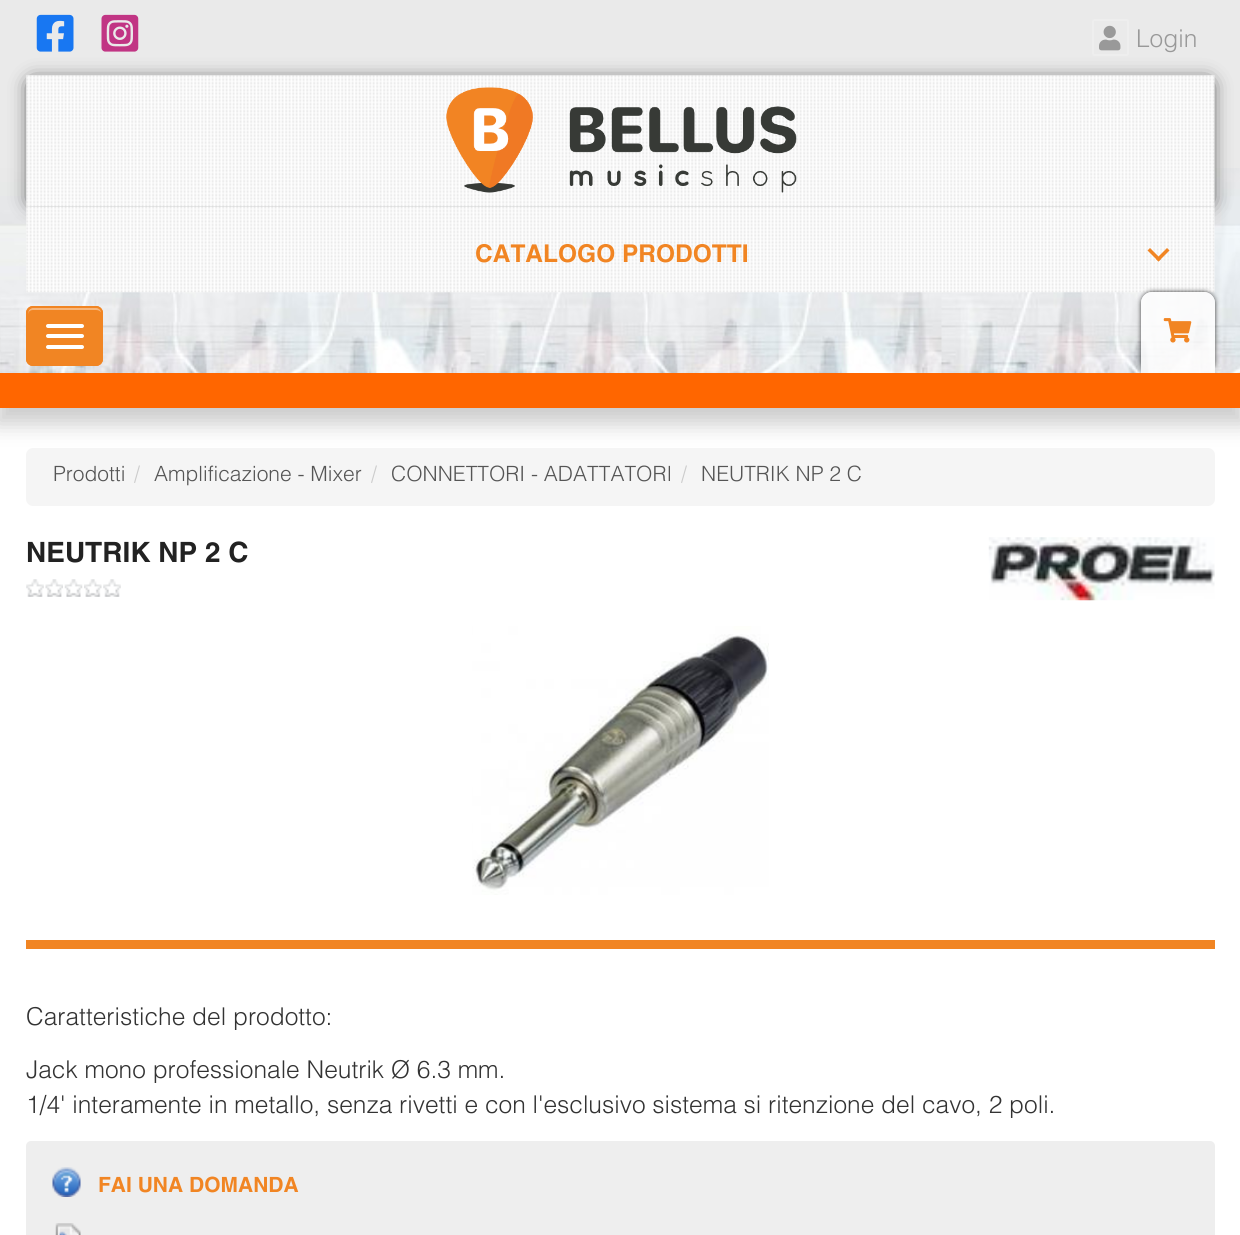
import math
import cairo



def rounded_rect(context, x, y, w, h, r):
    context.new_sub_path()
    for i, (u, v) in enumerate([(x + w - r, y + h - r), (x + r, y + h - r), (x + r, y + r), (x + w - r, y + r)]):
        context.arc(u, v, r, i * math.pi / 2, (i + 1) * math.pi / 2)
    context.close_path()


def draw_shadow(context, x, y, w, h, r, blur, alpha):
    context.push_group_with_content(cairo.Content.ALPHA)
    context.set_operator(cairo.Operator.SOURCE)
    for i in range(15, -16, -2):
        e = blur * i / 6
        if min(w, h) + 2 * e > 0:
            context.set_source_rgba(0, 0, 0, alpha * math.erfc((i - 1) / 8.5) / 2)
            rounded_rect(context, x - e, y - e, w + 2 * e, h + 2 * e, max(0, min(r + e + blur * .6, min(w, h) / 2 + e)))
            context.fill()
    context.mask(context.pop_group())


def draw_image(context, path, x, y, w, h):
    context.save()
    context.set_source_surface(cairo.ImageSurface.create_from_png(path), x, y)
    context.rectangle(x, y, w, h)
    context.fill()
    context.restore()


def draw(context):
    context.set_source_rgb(1, 1, 1)
    context.paint()
    context.set_source_rgb(204 / 255, 204 / 255, 204 / 255)
    draw_shadow(context, -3, 9, 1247, 415, 0, 10.5, 1)
    context.set_source_rgb(234 / 255, 234 / 255, 234 / 255)
    context.rectangle(0, 0, 1240, 168)
    context.fill()
    draw_image(context, "images/1.png", 0, 168, 1240, 205)
    rounded_rect(context, 1093, 20, 35, 35, 1.5)
    context.set_source_rgb(238 / 255, 238 / 255, 238 / 255)
    context.stroke()
    context.set_source_rgb(0, 0, 0)
    draw_shadow(context, 33, 84, 1175, 117, 0, 10.5, 1)
    draw_image(context, "images/2.png", 36, 14, 38, 38)
    draw_image(context, "images/3.png", 101, 14, 38, 38)
    draw_image(context, "images/4.png", 1099, 25, 22, 26)
    draw_image(context, "images/5.png", 26, 75, 1189, 132)
    draw_image(context, "images/6.png", 446, 87, 351, 106)
    draw_image(context, "images/7.png", 26, 206, 1189, 87)
    context.set_source_rgb(241 / 255, 133 / 255, 35 / 255)
    context.new_path()
    context.move_to(1150, 248)
    context.line_to(1161, 259)
    context.line_to(1158.5, 261.5)
    context.line_to(1147.5, 250.5)
    context.close_path()
    context.fill()
    context.new_path()
    context.move_to(1156, 259)
    context.line_to(1167, 248)
    context.line_to(1169.5, 250.5)
    context.line_to(1158.5, 261.5)
    context.close_path()
    context.fill()
    rounded_rect(context, 26, 306, 77, 60, 7)
    context.fill()
    context.set_source_rgb(247 / 255, 182 / 255, 123 / 255)
    context.new_path()
    context.move_to(33, 310)
    context.line_to(96, 310)
    context.curve_to(99, 310, 102, 312, 102, 315)
    context.curve_to(102, 305, 94, 308, 86, 308)
    context.line_to(44, 308)
    context.curve_to(36, 308, 28, 305, 28, 315)
    context.curve_to(28, 312, 30, 310, 33, 310)
    context.close_path()
    context.fill()
    rounded_rect(context, 27, 307, 75, 58, 6)
    context.set_source_rgb(241 / 255, 133 / 255, 35 / 255)
    context.stroke()
    context.set_source_rgb(1, 1, 1)
    rounded_rect(context, 46, 324, 38, 4, 2)
    context.fill()
    rounded_rect(context, 46, 334, 38, 4, 2)
    context.fill()
    rounded_rect(context, 46, 345, 38, 4, 2)
    context.fill()
    context.save()
    context.set_fill_rule(cairo.FillRule.EVEN_ODD)
    context.new_path()
    context.move_to(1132, 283)
    context.line_to(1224, 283)
    context.line_to(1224, 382)
    context.line_to(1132, 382)
    context.close_path()
    context.move_to(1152, 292)
    context.line_to(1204, 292)
    context.curve_to(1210, 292, 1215, 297, 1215, 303)
    context.line_to(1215, 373)
    context.line_to(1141, 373)
    context.line_to(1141, 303)
    context.curve_to(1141, 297, 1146, 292, 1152, 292)
    context.close_path()
    context.clip()
    context.set_source_rgb(51 / 255, 51 / 255, 51 / 255)
    draw_shadow(context, 1141, 292, 74, 81, 11, 2.5, 1)
    context.restore()
    context.set_source_rgba(1, 1, 1, 0.8)
    context.new_path()
    context.move_to(1152, 292)
    context.line_to(1204, 292)
    context.curve_to(1210, 292, 1215, 297, 1215, 303)
    context.line_to(1215, 373)
    context.line_to(1141, 373)
    context.line_to(1141, 303)
    context.curve_to(1141, 297, 1146, 292, 1152, 292)
    context.close_path()
    context.fill()
    draw_image(context, "images/8.png", 1163, 318, 29, 25)
    context.set_source_rgb(1, 102 / 255, 0)
    context.rectangle(0, 373, 1240, 35)
    context.fill()
    context.set_source_rgb(245 / 255, 245 / 255, 245 / 255)
    rounded_rect(context, 26, 448, 1189, 58, 7)
    context.fill()
    draw_image(context, "images/9.png", 26, 579, 18, 18)
    draw_image(context, "images/10.png", 45, 579, 18, 18)
    draw_image(context, "images/11.png", 64, 579, 19, 18)
    draw_image(context, "images/12.png", 84, 579, 18, 18)
    draw_image(context, "images/13.png", 103, 579, 18, 18)
    draw_image(context, "images/14.png", 988, 537, 227, 64)
    context.set_source_rgb(241 / 255, 133 / 255, 35 / 255)
    context.rectangle(26, 940, 1189, 9)
    context.fill()
    draw_image(context, "images/15.png", 472, 626, 297, 269)
    context.set_source_rgb(238 / 255, 238 / 255, 238 / 255)
    rounded_rect(context, 26, 1141, 1189, 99, 5)
    context.fill()
    draw_image(context, "images/16.png", 52, 1167, 29, 30)
    draw_image(context, "images/17.png", 55, 1223, 26, 12)
    context.select_font_face("Helvetica Light")
    context.set_font_size(24.5)
    context.set_source_rgb(153 / 255, 153 / 255, 153 / 255)
    context.move_to(1136, 47)
    context.show_text("Login")
    context.select_font_face("Helvetica", cairo.FontSlant.NORMAL, cairo.FontWeight.BOLD)
    context.set_source_rgb(241 / 255, 133 / 255, 35 / 255)
    context.move_to(475, 262)
    context.show_text("CATALOGO PRODOTTI")
    context.select_font_face("Helvetica Light")
    context.set_font_size(21)
    context.set_source_rgb(85 / 255, 85 / 255, 85 / 255)
    context.move_to(53, 481)
    context.show_text("Prodotti")
    context.set_source_rgb(204 / 255, 204 / 255, 204 / 255)
    context.move_to(134, 481)
    context.show_text("/")
    context.set_source_rgb(85 / 255, 85 / 255, 85 / 255)
    context.move_to(154, 481)
    context.show_text("Amplificazione - Mixer")
    context.set_source_rgb(204 / 255, 204 / 255, 204 / 255)
    context.move_to(371, 481)
    context.show_text("/")
    context.set_source_rgb(85 / 255, 85 / 255, 85 / 255)
    context.move_to(391, 481)
    context.show_text("CONNETTORI - ADATTATORI")
    context.set_source_rgb(204 / 255, 204 / 255, 204 / 255)
    context.move_to(681, 481)
    context.show_text("/")
    context.set_source_rgb(85 / 255, 85 / 255, 85 / 255)
    context.move_to(701, 481)
    context.show_text("NEUTRIK NP 2 C")
    context.select_font_face("Helvetica", cairo.FontSlant.NORMAL, cairo.FontWeight.BOLD)
    context.set_font_size(28)
    context.set_source_rgb(34 / 255, 34 / 255, 34 / 255)
    context.move_to(26, 562)
    context.show_text("NEUTRIK NP 2 C")
    context.select_font_face("Helvetica Light")
    context.set_font_size(24.5)
    context.set_source_rgb(51 / 255, 51 / 255, 51 / 255)
    context.move_to(26, 1025)
    context.show_text("Caratteristiche del prodotto:")
    context.move_to(26, 1078)
    context.show_text("Jack mono professionale Neutrik Ø 6.3 mm.")
    context.move_to(26, 1113)
    context.show_text("1/4' interamente in metallo, senza rivetti e con l'esclusivo sistema si ritenzione del cavo, 2 poli.")
    context.select_font_face("Helvetica", cairo.FontSlant.NORMAL, cairo.FontWeight.BOLD)
    context.set_font_size(21)
    context.set_source_rgb(241 / 255, 133 / 255, 35 / 255)
    context.move_to(98, 1192)
    context.show_text("FAI UNA DOMANDA")


surface = cairo.ImageSurface(cairo.Format.RGB24, 1240, 1235)
context = cairo.Context(surface)
options = cairo.FontOptions()
options.set_hint_metrics(cairo.HintMetrics.OFF)
options.set_hint_style(cairo.HintStyle.NONE)
context.set_font_options(options)
context.set_miter_limit(4)
draw(context)
surface.write_to_png("out.png")
